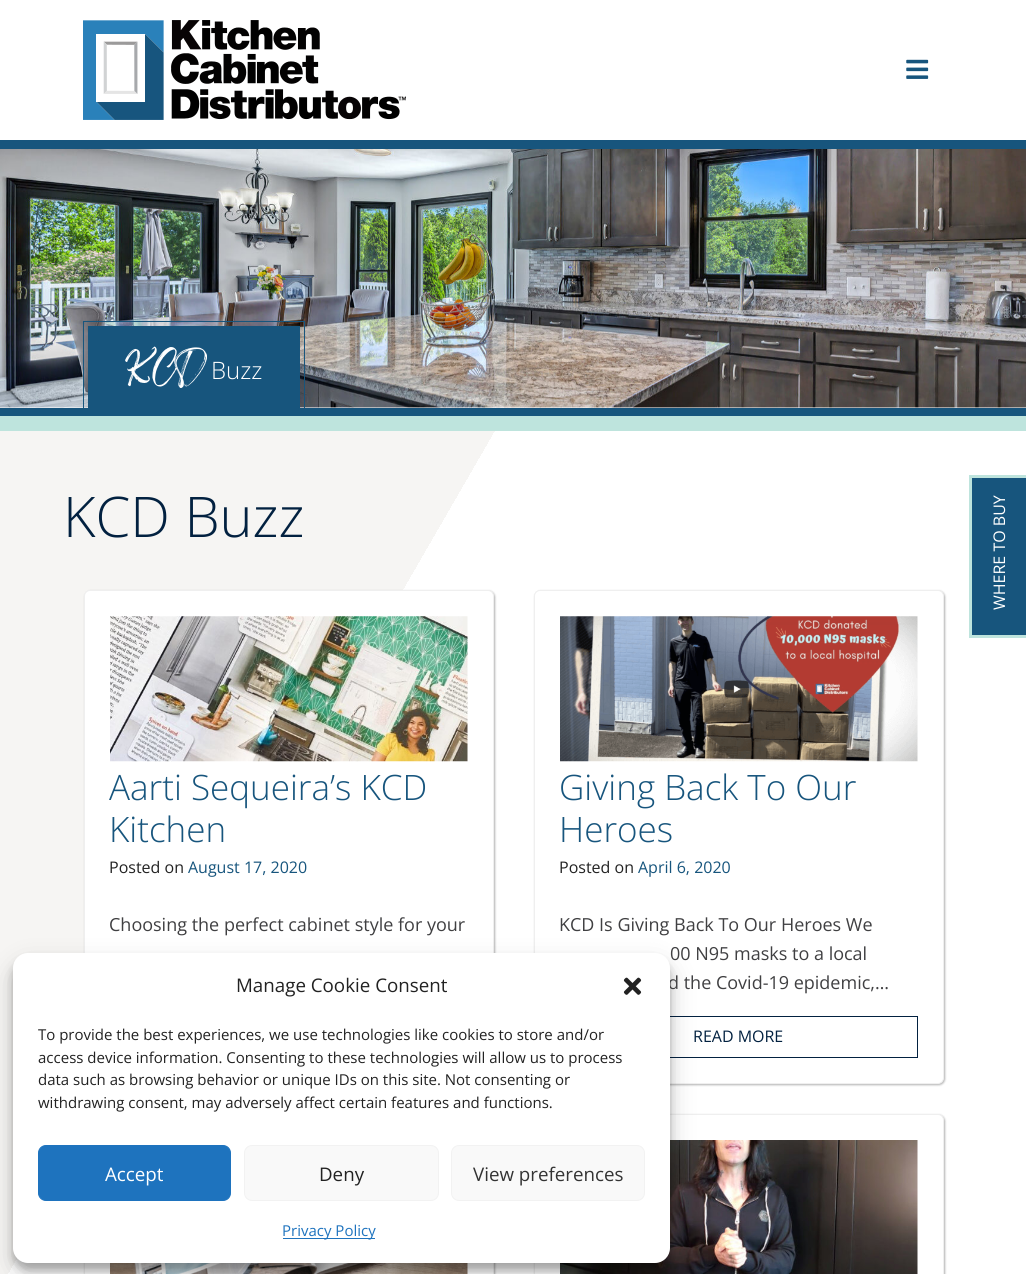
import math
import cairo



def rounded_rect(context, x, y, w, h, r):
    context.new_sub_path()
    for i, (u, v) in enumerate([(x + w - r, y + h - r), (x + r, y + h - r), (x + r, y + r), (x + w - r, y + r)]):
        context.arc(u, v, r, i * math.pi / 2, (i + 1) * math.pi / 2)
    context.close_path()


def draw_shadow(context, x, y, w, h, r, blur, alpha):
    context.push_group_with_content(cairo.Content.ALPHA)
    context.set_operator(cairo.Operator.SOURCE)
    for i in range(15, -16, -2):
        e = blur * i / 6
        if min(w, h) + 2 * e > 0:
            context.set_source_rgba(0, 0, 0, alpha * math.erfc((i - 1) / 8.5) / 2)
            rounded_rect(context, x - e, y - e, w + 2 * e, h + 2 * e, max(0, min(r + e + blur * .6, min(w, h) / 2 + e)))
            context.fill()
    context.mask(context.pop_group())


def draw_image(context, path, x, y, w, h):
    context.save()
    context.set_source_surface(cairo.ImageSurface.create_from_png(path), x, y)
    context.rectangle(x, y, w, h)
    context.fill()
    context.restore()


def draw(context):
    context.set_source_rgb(1, 1, 1)
    context.paint()
    context.set_source_rgb(23 / 255, 85 / 255, 125 / 255)
    context.rectangle(0, 140, 1026, 9)
    context.fill()
    draw_image(context, "images/1.png", 83, 20, 323, 100)
    draw_image(context, "images/2.png", 906, 59, 23, 20)
    context.set_source_rgb(190 / 255, 228 / 255, 221 / 255)
    context.rectangle(0, 416, 1026, 15)
    context.fill()
    context.set_source_rgb(23 / 255, 85 / 255, 125 / 255)
    context.rectangle(0, 408, 1026, 8)
    context.fill()
    draw_image(context, "images/3.png", 0, 149, 1026, 259)
    context.rectangle(83, 321, 222, 1)
    context.fill()
    context.rectangle(304, 321, 1, 87)
    context.fill()
    context.rectangle(83, 321, 1, 87)
    context.fill()
    context.rectangle(88, 326, 212, 82)
    context.fill()
    gradient = cairo.LinearGradient(-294, 940, 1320, 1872)
    gradient.add_color_stop_rgba(0.23, 246 / 255, 245 / 255, 243 / 255, 1)
    gradient.add_color_stop_rgba(0.23, 1, 1, 1, 1)
    context.set_source(gradient)
    context.rectangle(0, 431, 495, 843)
    context.fill()
    context.set_source_rgb(0, 0, 0)
    draw_shadow(context, 85, 591, 410, 494, 6, 1, 0.3)
    context.set_source_rgb(1, 1, 1)
    rounded_rect(context, 84.5, 590.5, 409, 493, 5.5)
    context.fill_preserve()
    context.set_source_rgb(239 / 255, 239 / 255, 239 / 255)
    context.set_line_width(1)
    context.stroke()
    draw_image(context, "images/4.png", 110, 616, 358, 146)
    context.set_source_rgb(0, 0, 0)
    draw_shadow(context, 535, 591, 410, 494, 6, 1, 0.3)
    context.set_source_rgb(1, 1, 1)
    rounded_rect(context, 534.5, 590.5, 409, 493, 5.5)
    context.fill_preserve()
    context.set_source_rgb(239 / 255, 239 / 255, 239 / 255)
    context.stroke()
    draw_image(context, "images/5.png", 560, 616, 358, 146)
    context.rectangle(560.5, 1016.5, 357, 41)
    context.set_source_rgb(2 / 255, 33 / 255, 64 / 255)
    context.stroke()
    context.set_source_rgb(0, 0, 0)
    draw_shadow(context, 85, 1115, 410, 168, 6, 1, 0.3)
    context.set_source_rgb(1, 1, 1)
    context.rectangle(85, 1263, 408, 11)
    context.fill()
    context.rectangle(84.5, 1114.5, 409, 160)
    context.set_source_rgb(239 / 255, 239 / 255, 239 / 255)
    context.stroke()
    draw_image(context, "images/6.png", 110, 1263, 358, 11)
    context.set_source_rgb(0, 0, 0)
    draw_shadow(context, 535, 1115, 410, 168, 6, 1, 0.3)
    context.set_source_rgb(1, 1, 1)
    rounded_rect(context, 534.5, 1114.5, 409, 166, 5.5)
    context.fill_preserve()
    context.set_source_rgb(239 / 255, 239 / 255, 239 / 255)
    context.stroke()
    draw_image(context, "images/7.png", 560, 1140, 358, 134)
    context.set_source_rgb(23 / 255, 85 / 255, 125 / 255)
    context.rectangle(972, 478, 54, 157)
    context.fill()
    context.set_source_rgb(190 / 255, 228 / 255, 221 / 255)
    context.rectangle(969, 475, 57, 3)
    context.fill()
    context.rectangle(969, 635, 57, 3)
    context.fill()
    context.rectangle(969, 475, 3, 163)
    context.fill()
    context.set_source_rgb(0, 0, 0)
    draw_shadow(context, 13, 960, 657, 310, 15, 4, 0.23)
    draw_shadow(context, 13, 965, 657, 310, 15, 12.5, 0.19)
    context.select_font_face("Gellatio")
    context.set_font_size(27.5)
    context.set_source_rgb(1, 1, 1)
    context.move_to(125, 387)
    context.show_text("KCD")
    context.select_font_face("Open Sans Light")
    context.set_font_size(24)
    context.move_to(211, 379)
    context.show_text("Buzz")
    context.set_font_size(56)
    context.set_source_rgb(2 / 255, 33 / 255, 64 / 255)
    context.move_to(63, 537)
    context.show_text("KCD Buzz")
    context.set_font_size(35)
    context.set_source_rgb(23 / 255, 85 / 255, 125 / 255)
    context.move_to(109, 800)
    context.show_text("Aarti Sequeira’s KCD")
    context.move_to(109, 842)
    context.show_text("Kitchen")
    context.select_font_face("Open Sans")
    context.set_font_size(16)
    context.set_source_rgb(34 / 255, 34 / 255, 34 / 255)
    context.move_to(109, 873)
    context.show_text("Posted on")
    context.set_source_rgb(23 / 255, 85 / 255, 125 / 255)
    context.move_to(188, 873)
    context.show_text("August 17, 2020")
    context.set_font_size(18)
    context.set_source_rgb(64 / 255, 64 / 255, 66 / 255)
    context.move_to(109, 931)
    context.show_text("Choosing the perfect cabinet style for your")
    context.select_font_face("Open Sans Light")
    context.set_font_size(35)
    context.set_source_rgb(23 / 255, 85 / 255, 125 / 255)
    context.move_to(559, 800)
    context.show_text("Giving Back To Our")
    context.move_to(559, 842)
    context.show_text("Heroes")
    context.select_font_face("Open Sans")
    context.set_font_size(16)
    context.set_source_rgb(34 / 255, 34 / 255, 34 / 255)
    context.move_to(559, 873)
    context.show_text("Posted on")
    context.set_source_rgb(23 / 255, 85 / 255, 125 / 255)
    context.move_to(638, 873)
    context.show_text("April 6, 2020")
    context.set_font_size(18)
    context.set_source_rgb(64 / 255, 64 / 255, 66 / 255)
    context.move_to(559, 931)
    context.show_text("KCD Is Giving Back To Our Heroes We")
    context.move_to(670, 960)
    context.show_text("00 N95 masks to a local")
    context.move_to(668, 989)
    context.show_text("d the Covid-19 epidemic,…")
    context.set_font_size(16)
    context.set_source_rgb(2 / 255, 33 / 255, 64 / 255)
    context.move_to(693, 1042)
    context.show_text("READ MORE")
    context.set_source_rgb(1, 1, 1)
    context.save()
    context.translate(1005, 610)
    context.rotate(-90 * math.pi / 180)
    context.move_to(0, 0)
    context.show_text("WHERE TO BUY")
    context.restore()
    rounded_rect(context, 13, 953, 657, 310, 15)
    context.fill()
    context.set_font_size(18.75)
    context.set_source_rgb(34 / 255, 34 / 255, 34 / 255)
    context.move_to(236, 992)
    context.show_text("Manage Cookie Consent")
    draw_image(context, "images/8.png", 623, 977, 19, 18)
    context.set_font_size(15)
    context.move_to(38, 1040)
    context.show_text("To provide the best experiences, we use technologies like cookies to store and/or")
    context.move_to(38, 1063)
    context.show_text("access device information. Consenting to these technologies will allow us to process")
    context.move_to(38, 1085)
    context.show_text("data such as browsing behavior or unique IDs on this site. Not consenting or")
    context.move_to(38, 1108)
    context.show_text("withdrawing consent, may adversely affect certain features and functions.")
    context.set_source_rgb(30 / 255, 115 / 255, 190 / 255)
    rounded_rect(context, 38.5, 1145.5, 192, 55, 7.5)
    context.fill_preserve()
    context.stroke()
    context.set_font_size(18.75)
    context.set_source_rgb(1, 1, 1)
    context.move_to(105, 1181)
    context.show_text("Accept")
    context.set_source_rgb(249 / 255, 249 / 255, 249 / 255)
    rounded_rect(context, 244.5, 1145.5, 194, 55, 7.5)
    context.fill_preserve()
    context.set_source_rgb(242 / 255, 242 / 255, 242 / 255)
    context.stroke()
    context.set_source_rgb(34 / 255, 34 / 255, 34 / 255)
    context.move_to(319, 1181)
    context.show_text("Deny")
    context.set_source_rgb(249 / 255, 249 / 255, 249 / 255)
    rounded_rect(context, 451.5, 1145.5, 193, 55, 7.5)
    context.fill_preserve()
    context.set_source_rgb(242 / 255, 242 / 255, 242 / 255)
    context.stroke()
    context.set_source_rgb(51 / 255, 51 / 255, 51 / 255)
    context.move_to(473, 1181)
    context.show_text("View preferences")
    context.set_source_rgb(30 / 255, 115 / 255, 190 / 255)
    context.rectangle(283, 1238, 92, 1)
    context.fill()
    context.set_font_size(15)
    context.move_to(282, 1236)
    context.show_text("Privacy Policy")


surface = cairo.ImageSurface(cairo.Format.RGB24, 1026, 1274)
context = cairo.Context(surface)
options = cairo.FontOptions()
options.set_hint_metrics(cairo.HintMetrics.OFF)
options.set_hint_style(cairo.HintStyle.NONE)
context.set_font_options(options)
context.set_miter_limit(4)
draw(context)
surface.write_to_png("out.png")
